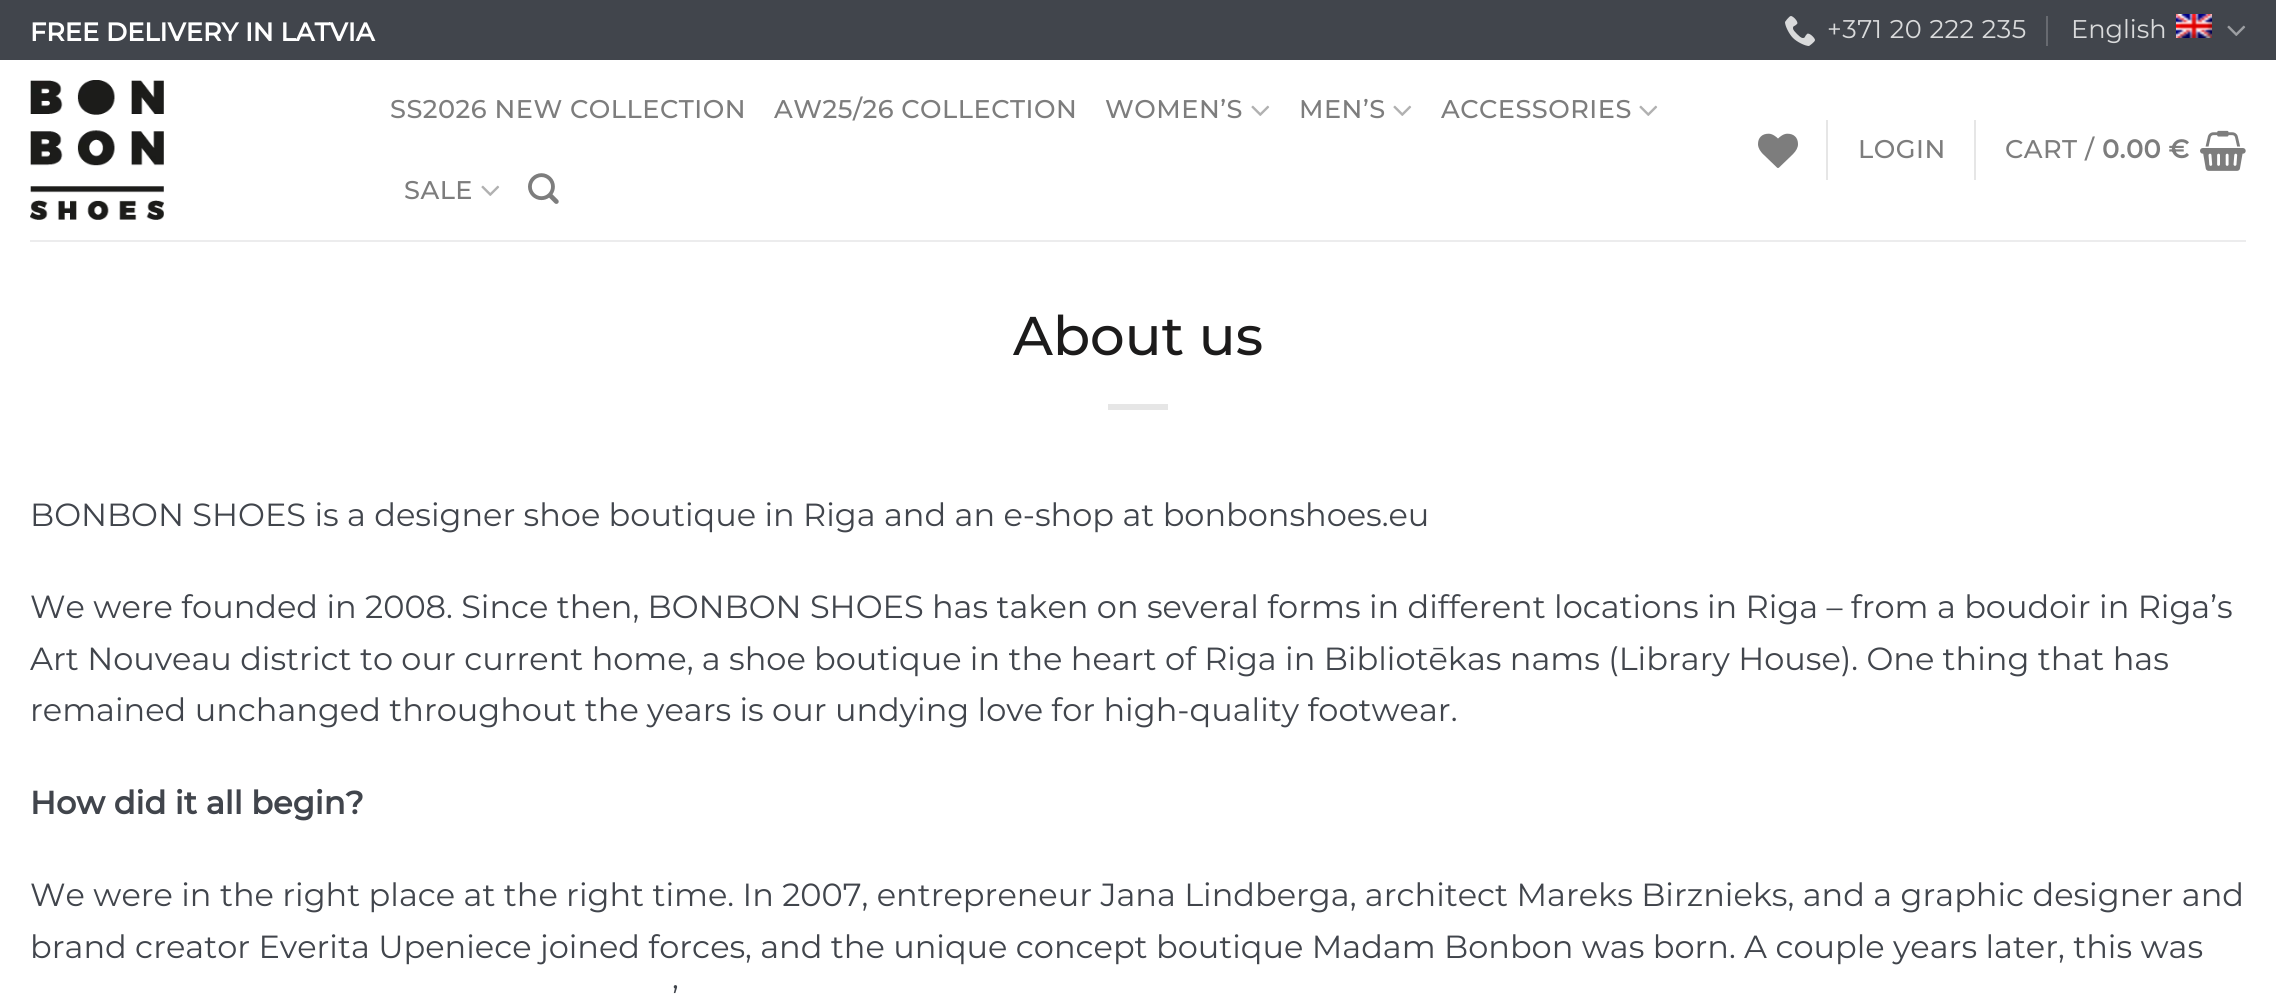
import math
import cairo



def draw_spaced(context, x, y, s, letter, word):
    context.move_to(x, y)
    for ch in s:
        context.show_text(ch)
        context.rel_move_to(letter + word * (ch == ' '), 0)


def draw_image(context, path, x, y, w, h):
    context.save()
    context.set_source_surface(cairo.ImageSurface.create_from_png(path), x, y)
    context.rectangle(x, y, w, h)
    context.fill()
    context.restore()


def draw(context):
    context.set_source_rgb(1, 1, 1)
    context.paint()
    context.set_source_rgb(65 / 255, 69 / 255, 76 / 255)
    context.rectangle(0, 0, 2276, 60)
    context.fill()
    draw_image(context, "images/1.png", 1785, 16, 30, 30)
    context.set_source_rgb(103 / 255, 106 / 255, 112 / 255)
    context.rectangle(2046, 16, 2, 30)
    context.fill()
    draw_image(context, "images/2.png", 2176, 14, 36, 24)
    draw_image(context, "images/3.png", 2227, 25, 19, 11)
    draw_image(context, "images/4.png", 30, 80, 134, 140)
    draw_image(context, "images/5.png", 1251, 105, 19, 11)
    draw_image(context, "images/5.png", 1393, 105, 19, 11)
    draw_image(context, "images/5.png", 1639, 105, 19, 11)
    draw_image(context, "images/5.png", 481, 185, 19, 11)
    draw_image(context, "images/6.png", 528, 173, 31, 31)
    draw_image(context, "images/7.png", 1758, 133, 40, 35)
    context.set_source_rgb(230 / 255, 230 / 255, 230 / 255)
    context.rectangle(1826, 120, 2, 60)
    context.fill()
    context.rectangle(1974, 120, 2, 60)
    context.fill()
    draw_image(context, "images/8.png", 2200, 130, 46, 41)
    context.set_source_rgb(236 / 255, 236 / 255, 237 / 255)
    context.rectangle(30, 240, 2216, 2)
    context.fill()
    context.set_source_rgb(230 / 255, 230 / 255, 230 / 255)
    context.rectangle(1108, 404, 60, 6)
    context.fill()
    context.select_font_face("Montserrat", cairo.FontSlant.NORMAL, cairo.FontWeight.BOLD)
    context.set_font_size(25.6)
    context.set_source_rgb(1, 1, 1)
    context.move_to(30, 41)
    context.show_text("FREE DELIVERY IN LATVIA")
    context.select_font_face("Montserrat Thin")
    context.set_source_rgb(217 / 255, 218 / 255, 219 / 255)
    draw_spaced(context, 1827, 38, "+371 20 222 235", 0.5, 0)
    context.move_to(2071, 38)
    context.show_text("English")
    context.select_font_face("Montserrat Medium")
    context.set_source_rgb(125 / 255, 125 / 255, 125 / 255)
    draw_spaced(context, 390, 118, "SS2026 NEW COLLECTION", 0.5, 0)
    draw_spaced(context, 774, 118, "AW25/26 COLLECTION", 0.5, 0)
    draw_spaced(context, 1105, 118, "WOMEN’S", 0.5, 0)
    draw_spaced(context, 1299, 118, "MEN’S", 0.5, 0)
    draw_spaced(context, 1441, 118, "ACCESSORIES", 0.5, 0)
    draw_spaced(context, 404, 199, "SALE", 0.5, 0)
    draw_spaced(context, 1858, 158, "LOGIN", 0.5, 0)
    draw_spaced(context, 2005, 158, "CART /", 0.5, 0)
    context.select_font_face("Montserrat", cairo.FontSlant.NORMAL, cairo.FontWeight.BOLD)
    draw_spaced(context, 2102, 158, "0.00 €", 0.5, 0)
    context.select_font_face("Montserrat Medium")
    context.set_font_size(54.5)
    context.set_source_rgb(28 / 255, 27 / 255, 27 / 255)
    context.move_to(1013, 355)
    context.show_text("About us")
    context.select_font_face("Montserrat Thin")
    context.set_font_size(32)
    context.set_source_rgb(65 / 255, 69 / 255, 76 / 255)
    context.move_to(30, 526)
    context.show_text("BONBON SHOES is a designer shoe boutique in Riga and an e-shop at bonbonshoes.eu")
    context.move_to(30, 618)
    context.show_text("We were founded in 2008. Since then, BONBON SHOES has taken on several forms in different locations in Riga – from a boudoir in Riga’s")
    context.move_to(30, 670)
    context.show_text("Art Nouveau district to our current home, a shoe boutique in the heart of Riga in Bibliotēkas nams (Library House). One thing that has")
    context.move_to(30, 721)
    context.show_text("remained unchanged throughout the years is our undying love for high-quality footwear.")
    context.select_font_face("Montserrat", cairo.FontSlant.NORMAL, cairo.FontWeight.BOLD)
    context.move_to(30, 814)
    context.show_text("How did it all begin?")
    context.select_font_face("Montserrat Thin")
    context.move_to(30, 906)
    context.show_text("We were in the right place at the right time. In 2007, entrepreneur Jana Lindberga, architect Mareks Birznieks, and a graphic designer and")
    context.move_to(30, 958)
    context.show_text("brand creator Everita Upeniece joined forces, and the unique concept boutique Madam Bonbon was born. A couple years later, this was")
    context.move_to(672, 1009)
    context.show_text("’")


surface = cairo.ImageSurface(cairo.Format.RGB24, 2276, 996)
context = cairo.Context(surface)
options = cairo.FontOptions()
options.set_hint_metrics(cairo.HintMetrics.OFF)
options.set_hint_style(cairo.HintStyle.NONE)
context.set_font_options(options)
context.set_miter_limit(4)
draw(context)
surface.write_to_png("out.png")
